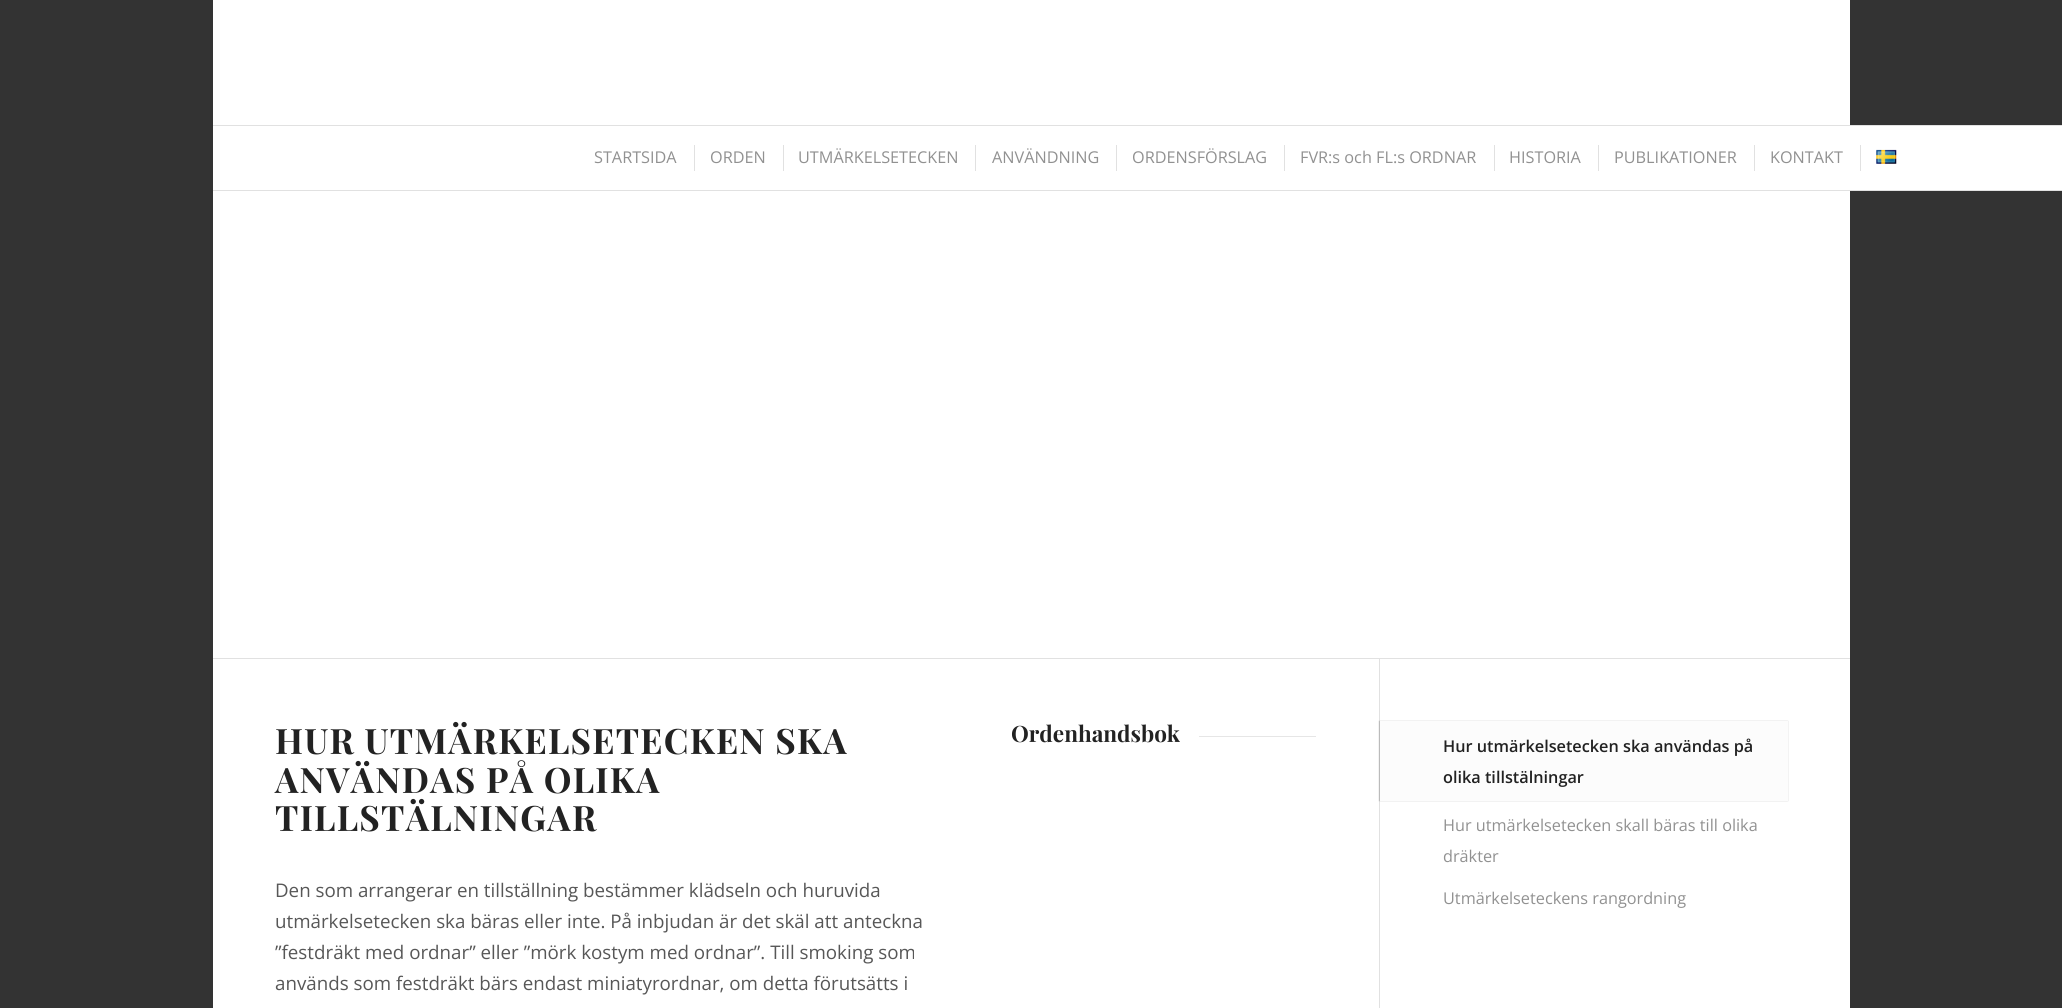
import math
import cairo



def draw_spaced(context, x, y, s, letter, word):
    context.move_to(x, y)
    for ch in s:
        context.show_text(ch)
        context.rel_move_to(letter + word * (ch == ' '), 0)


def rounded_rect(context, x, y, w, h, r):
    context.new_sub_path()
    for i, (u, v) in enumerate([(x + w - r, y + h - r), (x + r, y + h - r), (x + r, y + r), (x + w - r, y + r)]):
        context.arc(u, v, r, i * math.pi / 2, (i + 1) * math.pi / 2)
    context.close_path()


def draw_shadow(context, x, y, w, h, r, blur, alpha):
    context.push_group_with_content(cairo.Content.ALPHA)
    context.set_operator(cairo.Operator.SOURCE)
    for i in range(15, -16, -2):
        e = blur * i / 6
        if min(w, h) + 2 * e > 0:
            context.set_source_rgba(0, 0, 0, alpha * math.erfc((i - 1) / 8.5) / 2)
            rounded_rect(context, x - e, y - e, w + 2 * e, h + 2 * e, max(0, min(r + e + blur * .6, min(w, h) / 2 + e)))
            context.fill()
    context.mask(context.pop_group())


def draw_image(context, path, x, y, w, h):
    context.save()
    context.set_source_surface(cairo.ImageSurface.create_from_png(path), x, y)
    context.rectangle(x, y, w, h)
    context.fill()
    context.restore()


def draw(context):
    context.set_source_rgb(51 / 255, 51 / 255, 51 / 255)
    context.paint()
    context.set_source_rgb(1, 1, 1)
    context.rectangle(213, 0, 1637, 1008)
    context.fill()
    context.rectangle(1850, 126, 212, 64)
    context.fill()
    context.set_source_rgb(225 / 255, 225 / 255, 225 / 255)
    context.rectangle(213, 125, 1849, 1)
    context.fill()
    context.rectangle(213, 190, 1849, 1)
    context.fill()
    context.rectangle(694, 145, 1, 26)
    context.fill()
    context.rectangle(783, 145, 1, 26)
    context.fill()
    context.rectangle(975, 145, 1, 26)
    context.fill()
    context.rectangle(1116, 145, 1, 26)
    context.fill()
    context.rectangle(1284, 145, 1, 26)
    context.fill()
    context.rectangle(1494, 145, 1, 26)
    context.fill()
    context.rectangle(1598, 145, 1, 26)
    context.fill()
    context.rectangle(1754, 145, 1, 26)
    context.fill()
    context.rectangle(1860, 145, 1, 26)
    context.fill()
    draw_image(context, "images/1.png", 1876, 149, 21, 15)
    context.rectangle(213, 658, 1637, 1)
    context.fill()
    context.rectangle(1379, 659, 1, 349)
    context.fill()
    context.set_source_rgb(230 / 255, 230 / 255, 230 / 255)
    context.rectangle(1199, 736, 117, 1)
    context.fill()
    context.set_source_rgb(0, 0, 0)
    draw_shadow(context, 1379, 721, 409, 80, 0, 0.5, 0.2)
    context.set_source_rgb(252 / 255, 252 / 255, 252 / 255)
    context.rectangle(1380, 721, 408, 80)
    context.fill()
    context.select_font_face("Open Sans")
    context.set_font_size(16.25)
    context.set_source_rgb(145 / 255, 145 / 255, 145 / 255)
    context.move_to(594, 163)
    context.show_text("STARTSIDA")
    context.move_to(710, 163)
    context.show_text("ORDEN")
    context.move_to(798, 163)
    context.show_text("UTMÄRKELSETECKEN")
    context.move_to(992, 163)
    context.show_text("ANVÄNDNING")
    context.move_to(1132, 163)
    context.show_text("ORDENSFÖRSLAG")
    context.move_to(1300, 163)
    context.show_text("FVR:s och FL:s ORDNAR")
    context.move_to(1509, 163)
    context.show_text("HISTORIA")
    context.move_to(1614, 163)
    context.show_text("PUBLIKATIONER")
    context.move_to(1770, 163)
    context.show_text("KONTAKT")
    context.select_font_face("Playfair Display", cairo.FontSlant.NORMAL, cairo.FontWeight.BOLD)
    context.set_font_size(35)
    context.set_source_rgb(34 / 255, 34 / 255, 34 / 255)
    draw_spaced(context, 275, 754, "HUR UTMÄRKELSETECKEN SKA", 1.25, 0)
    draw_spaced(context, 275, 793, "ANVÄNDAS PÅ OLIKA", 1.25, 0)
    draw_spaced(context, 275, 831, "TILLSTÄLNINGAR", 1.25, 0)
    context.select_font_face("Open Sans")
    context.set_font_size(18.75)
    context.set_source_rgb(87 / 255, 87 / 255, 87 / 255)
    context.move_to(275, 897)
    context.show_text("Den som arrangerar en tillställning bestämmer klädseln och huruvida")
    context.move_to(275, 928)
    context.show_text("utmärkelsetecken ska bäras eller inte. På inbjudan är det skäl att anteckna")
    context.move_to(275, 959)
    context.show_text("”festdräkt med ordnar” eller ”mörk kostym med ordnar”. Till smoking som")
    context.move_to(275, 990)
    context.show_text("används som festdräkt bärs endast miniatyrordnar, om detta förutsätts i")
    context.select_font_face("Playfair Display", cairo.FontSlant.NORMAL, cairo.FontWeight.BOLD)
    context.set_font_size(22.5)
    context.set_source_rgb(34 / 255, 34 / 255, 34 / 255)
    context.move_to(1011, 742)
    context.show_text("Ordenhandsbok")
    context.select_font_face("Open Sans SemiBold")
    context.set_font_size(16.25)
    context.move_to(1443, 752)
    context.show_text("Hur utmärkelsetecken ska användas på")
    context.move_to(1443, 783)
    context.show_text("olika tillstälningar")
    context.select_font_face("Open Sans")
    context.set_source_rgb(145 / 255, 145 / 255, 145 / 255)
    context.move_to(1443, 831)
    context.show_text("Hur utmärkelsetecken skall bäras till olika")
    context.move_to(1443, 862)
    context.show_text("dräkter")
    context.move_to(1443, 904)
    context.show_text("Utmärkelseteckens rangordning")


surface = cairo.ImageSurface(cairo.Format.RGB24, 2062, 1008)
context = cairo.Context(surface)
options = cairo.FontOptions()
options.set_hint_metrics(cairo.HintMetrics.OFF)
options.set_hint_style(cairo.HintStyle.NONE)
context.set_font_options(options)
context.set_miter_limit(4)
draw(context)
surface.write_to_png("out.png")
